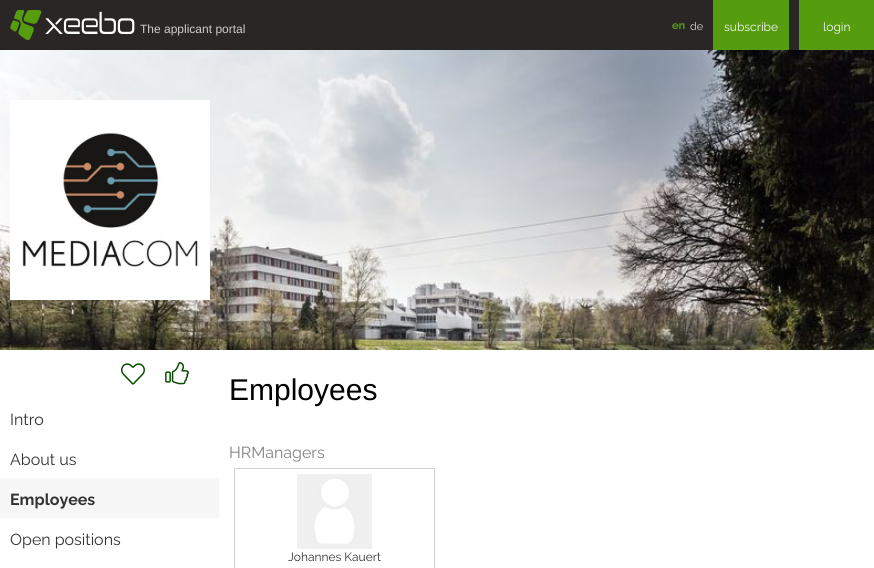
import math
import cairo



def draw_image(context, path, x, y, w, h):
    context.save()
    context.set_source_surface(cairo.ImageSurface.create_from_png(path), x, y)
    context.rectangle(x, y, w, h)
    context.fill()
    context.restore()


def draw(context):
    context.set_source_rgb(1, 1, 1)
    context.paint()
    context.set_source_rgb(42 / 255, 38 / 255, 38 / 255)
    context.rectangle(0, 0, 799, 50)
    context.fill()
    draw_image(context, "images/1.png", 10, 10, 32, 30)
    draw_image(context, "images/2.png", 45, 11, 90, 23)
    context.set_source_rgb(85 / 255, 156 / 255, 14 / 255)
    context.rectangle(713, 0, 76, 50)
    context.fill()
    context.rectangle(799, 0, 75, 50)
    context.fill()
    draw_image(context, "images/3.png", 0, 50, 874, 300)
    draw_image(context, "images/4.png", 10, 100, 200, 200)
    draw_image(context, "images/5.png", 121, 363, 24, 22)
    draw_image(context, "images/6.png", 165, 362, 24, 23)
    context.set_source_rgb(247 / 255, 247 / 255, 247 / 255)
    context.rectangle(0, 478, 219, 40)
    context.fill()
    context.rectangle(234.5, 468.5, 200, 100)
    context.set_source_rgb(210 / 255, 209 / 255, 209 / 255)
    context.set_line_width(1)
    context.stroke()
    draw_image(context, "images/7.png", 297, 474, 75, 75)
    context.select_font_face("Liberation Sans")
    context.set_font_size(12)
    context.set_source_rgb(204 / 255, 204 / 255, 204 / 255)
    context.move_to(140, 33)
    context.show_text("The applicant portal")
    context.select_font_face("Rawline", cairo.FontSlant.NORMAL, cairo.FontWeight.BOLD)
    context.set_font_size(11)
    context.set_source_rgb(85 / 255, 156 / 255, 14 / 255)
    context.move_to(672, 29)
    context.show_text("en")
    context.select_font_face("Rawline")
    context.set_source_rgb(210 / 255, 209 / 255, 209 / 255)
    context.move_to(690, 30)
    context.show_text("de")
    context.set_font_size(12)
    context.set_source_rgb(247 / 255, 247 / 255, 247 / 255)
    context.move_to(724, 31)
    context.show_text("subscribe")
    context.move_to(823, 31)
    context.show_text("login")
    context.set_font_size(16)
    context.set_source_rgb(51 / 255, 51 / 255, 51 / 255)
    context.move_to(10, 425)
    context.show_text("Intro")
    context.move_to(10, 465)
    context.show_text("About us")
    context.select_font_face("Rawline", cairo.FontSlant.NORMAL, cairo.FontWeight.BOLD)
    context.move_to(10, 505)
    context.show_text("Employees")
    context.select_font_face("Rawline")
    context.move_to(10, 545)
    context.show_text("Open positions")
    context.select_font_face("Liberation Sans")
    context.set_font_size(30)
    context.set_source_rgb(0, 0, 0)
    context.move_to(229, 400)
    context.show_text("Employees")
    context.select_font_face("Rawline")
    context.set_font_size(16)
    context.set_source_rgb(130 / 255, 127 / 255, 127 / 255)
    context.move_to(229, 458)
    context.show_text("HRManagers")
    context.set_font_size(12)
    context.set_source_rgb(51 / 255, 51 / 255, 51 / 255)
    context.move_to(288, 561)
    context.show_text("Johannes Kauert")


surface = cairo.ImageSurface(cairo.Format.RGB24, 874, 568)
context = cairo.Context(surface)
options = cairo.FontOptions()
options.set_hint_metrics(cairo.HintMetrics.OFF)
options.set_hint_style(cairo.HintStyle.NONE)
context.set_font_options(options)
context.set_miter_limit(4)
draw(context)
surface.write_to_png("out.png")
